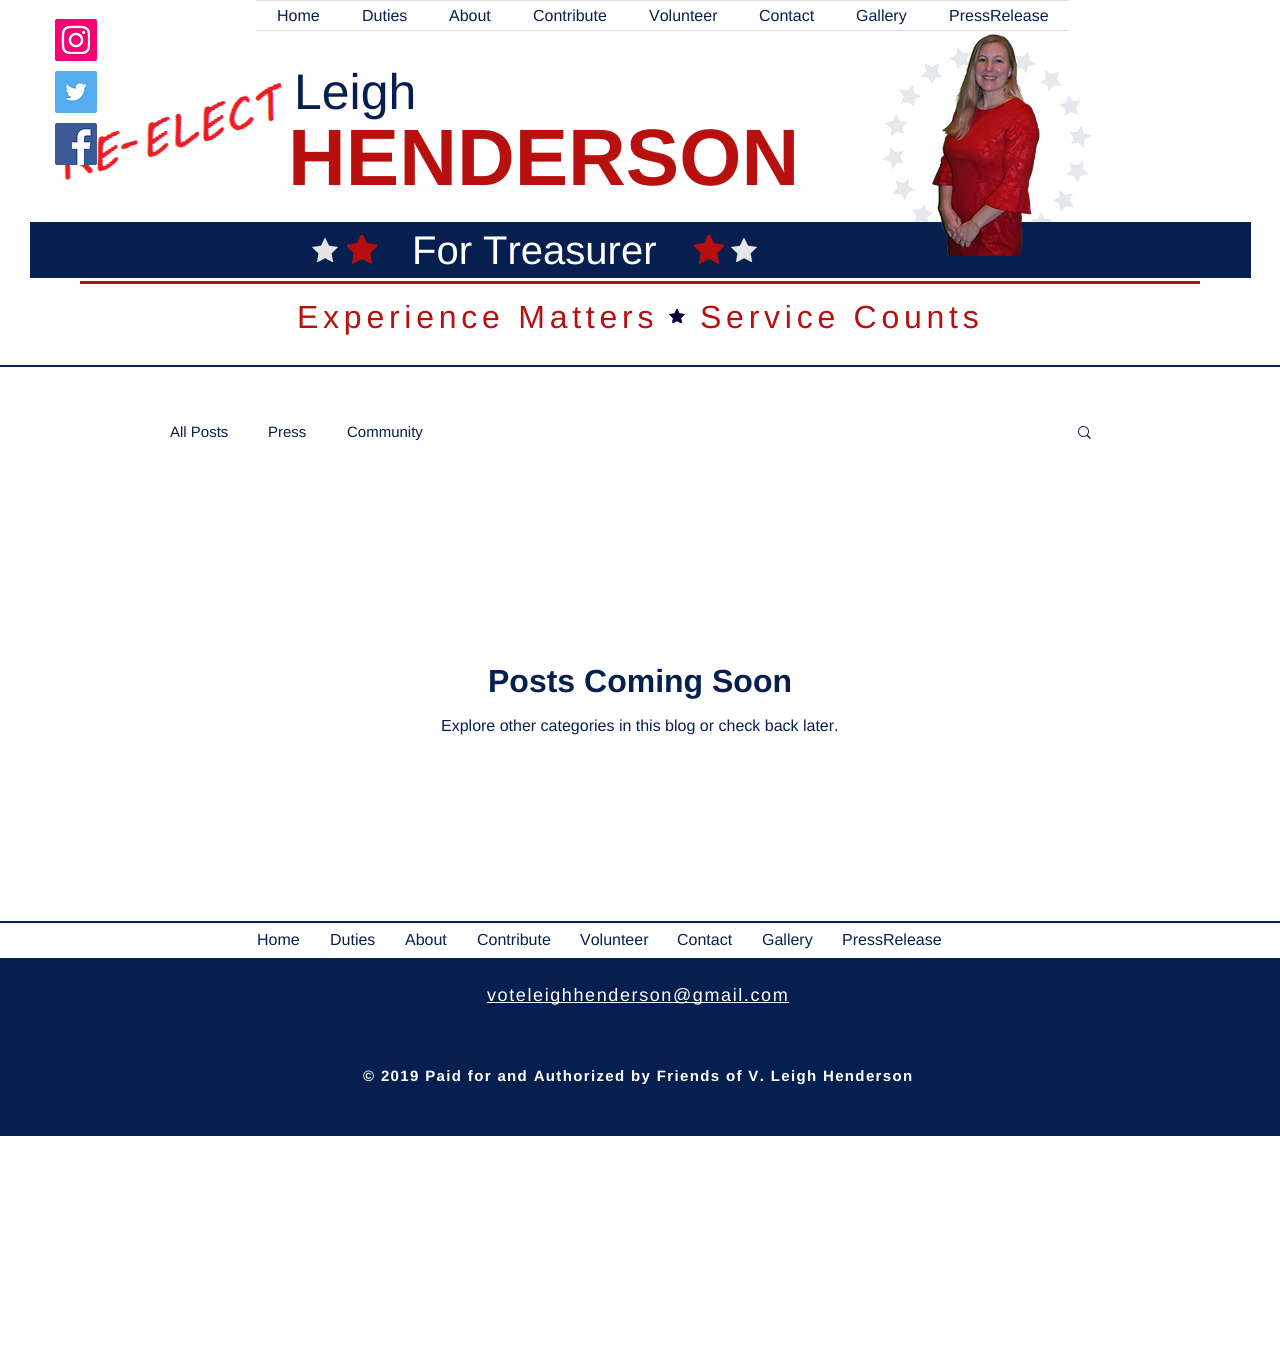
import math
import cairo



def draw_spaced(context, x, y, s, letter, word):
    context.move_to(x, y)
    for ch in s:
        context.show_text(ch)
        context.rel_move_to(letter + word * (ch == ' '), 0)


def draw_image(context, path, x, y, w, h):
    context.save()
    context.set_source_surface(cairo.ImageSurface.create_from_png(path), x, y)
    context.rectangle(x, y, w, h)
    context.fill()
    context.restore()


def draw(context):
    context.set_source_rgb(1, 1, 1)
    context.paint()
    context.set_source_rgb(218 / 255, 221 / 255, 228 / 255)
    context.rectangle(256, 0, 813, 1)
    context.fill()
    context.rectangle(256, 30, 813, 1)
    context.fill()
    draw_image(context, "images/1.png", 55, 19, 42, 42)
    draw_image(context, "images/5.png", 64, 82, 218, 98)
    draw_image(context, "images/2.png", 55, 71, 42, 42)
    draw_image(context, "images/3.png", 55, 123, 42, 42)
    draw_image(context, "images/6.png", 883, 43, 208, 179)
    context.set_source_rgb(7 / 255, 31 / 255, 78 / 255)
    context.rectangle(30, 222, 1221, 56)
    context.fill()
    draw_image(context, "images/4.png", 932, 34, 108, 222)
    draw_image(context, "images/7.png", 312, 238, 26, 24)
    draw_image(context, "images/8.png", 347, 235, 30, 30)
    draw_image(context, "images/8.png", 694, 235, 30, 30)
    draw_image(context, "images/7.png", 731, 238, 26, 24)
    context.set_source_rgb(184 / 255, 15 / 255, 15 / 255)
    context.rectangle(80, 281, 1120, 3)
    context.fill()
    draw_image(context, "images/9.png", 669, 309, 16, 14)
    context.set_source_rgb(7 / 255, 31 / 255, 78 / 255)
    context.rectangle(0, 365, 1280, 2)
    context.fill()
    draw_image(context, "images/10.png", 1078, 426, 13, 13)
    context.rectangle(0, 921, 1280, 2)
    context.fill()
    context.rectangle(0, 958, 1280, 178)
    context.fill()
    context.set_source_rgb(1, 1, 1)
    context.rectangle(487, 1002, 302, 1)
    context.fill()
    context.select_font_face("Liberation Sans")
    context.set_font_size(16)
    context.set_source_rgb(7 / 255, 31 / 255, 78 / 255)
    context.move_to(277, 21)
    context.show_text("Home")
    context.move_to(362, 21)
    context.show_text("Duties")
    context.move_to(449, 21)
    context.show_text("About")
    context.move_to(533, 21)
    context.show_text("Contribute")
    context.move_to(649, 21)
    context.show_text("Volunteer")
    context.move_to(759, 21)
    context.show_text("Contact")
    context.move_to(856, 21)
    context.show_text("Gallery")
    context.move_to(949, 21)
    context.show_text("PressRelease")
    context.set_font_size(50)
    context.move_to(294, 109)
    context.show_text("Leigh")
    context.select_font_face("Liberation Sans", cairo.FontSlant.NORMAL, cairo.FontWeight.BOLD)
    context.set_font_size(80)
    context.set_source_rgb(184 / 255, 15 / 255, 15 / 255)
    context.move_to(288, 185)
    context.show_text("HENDERSON")
    context.select_font_face("Liberation Sans")
    context.set_font_size(40)
    context.set_source_rgb(1, 1, 1)
    context.move_to(412, 264)
    context.show_text("For Treasurer")
    context.set_font_size(32)
    context.set_source_rgb(184 / 255, 15 / 255, 15 / 255)
    draw_spaced(context, 297, 328, "Experience Matters", 4.75, 0)
    draw_spaced(context, 700, 328, "Service Counts", 4.75, 0)
    context.set_font_size(15)
    context.set_source_rgb(7 / 255, 31 / 255, 78 / 255)
    context.move_to(170, 437)
    context.show_text("All Posts")
    context.move_to(268, 437)
    context.show_text("Press")
    context.move_to(347, 437)
    context.show_text("Community")
    context.select_font_face("Liberation Sans", cairo.FontSlant.NORMAL, cairo.FontWeight.BOLD)
    context.set_font_size(32)
    context.move_to(488, 692)
    context.show_text("Posts Coming Soon")
    context.select_font_face("Liberation Sans")
    context.set_font_size(16)
    context.move_to(441, 731)
    context.show_text("Explore other categories in this blog or check back later.")
    context.move_to(257, 945)
    context.show_text("Home")
    context.move_to(330, 945)
    context.show_text("Duties")
    context.move_to(405, 945)
    context.show_text("About")
    context.move_to(477, 945)
    context.show_text("Contribute")
    context.move_to(580, 945)
    context.show_text("Volunteer")
    context.move_to(677, 945)
    context.show_text("Contact")
    context.move_to(762, 945)
    context.show_text("Gallery")
    context.move_to(842, 945)
    context.show_text("PressRelease")
    context.set_font_size(18)
    context.set_source_rgb(1, 1, 1)
    draw_spaced(context, 487, 1001, "voteleighhenderson@gmail.com", 1.6, 0)
    context.select_font_face("Liberation Sans", cairo.FontSlant.NORMAL, cairo.FontWeight.BOLD)
    context.set_font_size(15)
    draw_spaced(context, 363, 1081, "© 2019 Paid for and Authorized by Friends of V. Leigh Henderson", 1.35, 0)


surface = cairo.ImageSurface(cairo.Format.RGB24, 1280, 1355)
context = cairo.Context(surface)
options = cairo.FontOptions()
options.set_hint_metrics(cairo.HintMetrics.OFF)
options.set_hint_style(cairo.HintStyle.NONE)
context.set_font_options(options)
context.set_miter_limit(4)
draw(context)
surface.write_to_png("out.png")
